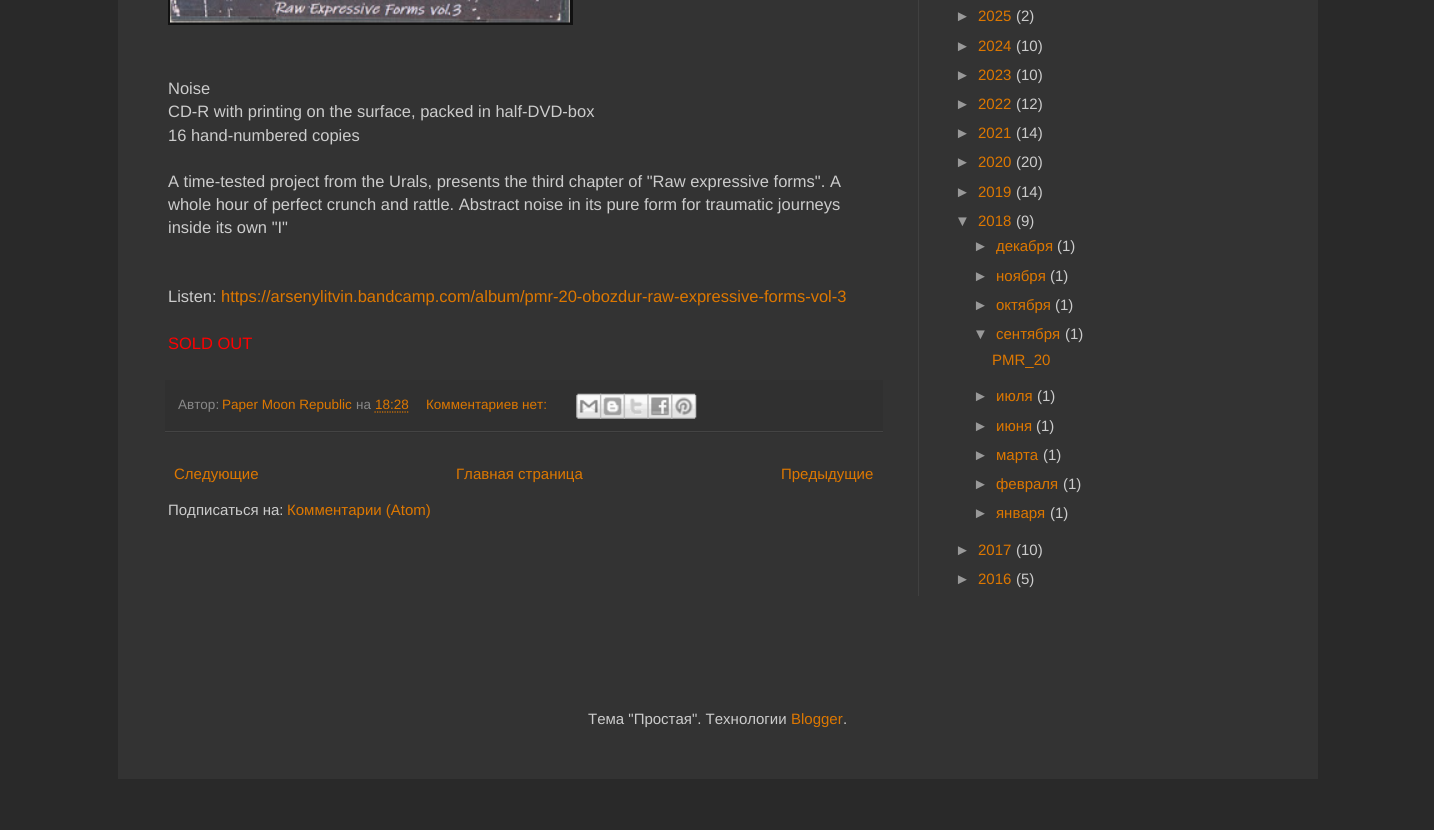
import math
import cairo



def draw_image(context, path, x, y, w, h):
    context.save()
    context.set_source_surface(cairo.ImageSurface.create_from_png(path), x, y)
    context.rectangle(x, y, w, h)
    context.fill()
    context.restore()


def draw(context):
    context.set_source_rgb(41 / 255, 41 / 255, 41 / 255)
    context.paint()
    context.set_source_rgb(51 / 255, 51 / 255, 51 / 255)
    context.rectangle(118, 0, 1200, 779)
    context.fill()
    context.set_source_rgb(64 / 255, 64 / 255, 64 / 255)
    context.rectangle(918, 0, 1, 596)
    context.fill()
    context.set_source_rgb(17 / 255, 17 / 255, 17 / 255)
    context.rectangle(168, 0, 405, 25)
    context.fill()
    draw_image(context, "images/1.png", 170, 0, 400, 23)
    context.set_source_rgb(48 / 255, 48 / 255, 48 / 255)
    context.rectangle(165, 380, 718, 53)
    context.fill()
    context.set_source_rgb(68 / 255, 68 / 255, 68 / 255)
    context.rectangle(165, 431, 718, 1)
    context.fill()
    context.new_path()
    context.move_to(374.5, 412)
    context.line_to(408.5, 412)
    context.set_source_rgb(221 / 255, 119 / 255, 0)
    context.set_line_width(1.2)
    context.set_dash([1.25, 1.25])
    context.stroke()
    draw_image(context, "images/2.png", 576, 393, 26, 26)
    draw_image(context, "images/3.png", 600, 393, 25, 26)
    draw_image(context, "images/4.png", 623, 393, 26, 26)
    draw_image(context, "images/5.png", 647, 393, 26, 26)
    draw_image(context, "images/6.png", 671, 393, 26, 26)
    context.select_font_face("Liberation Sans")
    context.set_font_size(16.5)
    context.set_source_rgb(204 / 255, 204 / 255, 204 / 255)
    context.move_to(168, 94)
    context.show_text("Noise")
    context.move_to(168, 117)
    context.show_text("CD-R with printing on the surface, packed in half-DVD-box")
    context.move_to(168, 141)
    context.show_text("16 hand-numbered copies")
    context.move_to(168, 187)
    context.show_text("A time-tested project from the Urals, presents the third chapter of \"Raw expressive forms\". A")
    context.move_to(168, 210)
    context.show_text("whole hour of perfect crunch and rattle. Abstract noise in its pure form for traumatic journeys")
    context.move_to(168, 233)
    context.show_text("inside its own \"I\"")
    context.move_to(168, 302)
    context.show_text("Listen:")
    context.set_source_rgb(221 / 255, 119 / 255, 0)
    context.move_to(221, 302)
    context.show_text("https://arsenylitvin.bandcamp.com/album/pmr-20-obozdur-raw-expressive-forms-vol-3")
    context.set_source_rgb(1, 0, 0)
    context.move_to(168, 349)
    context.show_text("SOLD OUT")
    context.set_font_size(13.5)
    context.set_source_rgb(136 / 255, 136 / 255, 136 / 255)
    context.move_to(178, 409)
    context.show_text("Автор:")
    context.set_source_rgb(221 / 255, 119 / 255, 0)
    context.move_to(222, 409)
    context.show_text("Paper Moon Republic")
    context.set_source_rgb(136 / 255, 136 / 255, 136 / 255)
    context.move_to(356, 409)
    context.show_text("на")
    context.set_source_rgb(221 / 255, 119 / 255, 0)
    context.move_to(375, 409)
    context.show_text("18:28")
    context.move_to(426, 409)
    context.show_text("Комментариев нет:")
    context.set_font_size(15)
    context.move_to(174, 479)
    context.show_text("Следующие")
    context.move_to(456, 479)
    context.show_text("Главная страница")
    context.move_to(781, 479)
    context.show_text("Предыдущие")
    context.set_source_rgb(204 / 255, 204 / 255, 204 / 255)
    context.move_to(168, 515)
    context.show_text("Подписаться на:")
    context.set_source_rgb(221 / 255, 119 / 255, 0)
    context.move_to(287, 515)
    context.show_text("Комментарии (Atom)")
    context.set_source_rgb(153 / 255, 153 / 255, 153 / 255)
    context.move_to(955, 21)
    context.show_text("►")
    context.set_source_rgb(221 / 255, 119 / 255, 0)
    context.move_to(978, 21)
    context.show_text("2025")
    context.set_source_rgb(204 / 255, 204 / 255, 204 / 255)
    context.move_to(1016, 21)
    context.show_text("(2)")
    context.set_source_rgb(153 / 255, 153 / 255, 153 / 255)
    context.move_to(955, 51)
    context.show_text("►")
    context.set_source_rgb(221 / 255, 119 / 255, 0)
    context.move_to(978, 51)
    context.show_text("2024")
    context.set_source_rgb(204 / 255, 204 / 255, 204 / 255)
    context.move_to(1016, 51)
    context.show_text("(10)")
    context.set_source_rgb(153 / 255, 153 / 255, 153 / 255)
    context.move_to(955, 80)
    context.show_text("►")
    context.set_source_rgb(221 / 255, 119 / 255, 0)
    context.move_to(978, 80)
    context.show_text("2023")
    context.set_source_rgb(204 / 255, 204 / 255, 204 / 255)
    context.move_to(1016, 80)
    context.show_text("(10)")
    context.set_source_rgb(153 / 255, 153 / 255, 153 / 255)
    context.move_to(955, 109)
    context.show_text("►")
    context.set_source_rgb(221 / 255, 119 / 255, 0)
    context.move_to(978, 109)
    context.show_text("2022")
    context.set_source_rgb(204 / 255, 204 / 255, 204 / 255)
    context.move_to(1016, 109)
    context.show_text("(12)")
    context.set_source_rgb(153 / 255, 153 / 255, 153 / 255)
    context.move_to(955, 138)
    context.show_text("►")
    context.set_source_rgb(221 / 255, 119 / 255, 0)
    context.move_to(978, 138)
    context.show_text("2021")
    context.set_source_rgb(204 / 255, 204 / 255, 204 / 255)
    context.move_to(1016, 138)
    context.show_text("(14)")
    context.set_source_rgb(153 / 255, 153 / 255, 153 / 255)
    context.move_to(955, 167)
    context.show_text("►")
    context.set_source_rgb(221 / 255, 119 / 255, 0)
    context.move_to(978, 167)
    context.show_text("2020")
    context.set_source_rgb(204 / 255, 204 / 255, 204 / 255)
    context.move_to(1016, 167)
    context.show_text("(20)")
    context.set_source_rgb(153 / 255, 153 / 255, 153 / 255)
    context.move_to(955, 197)
    context.show_text("►")
    context.set_source_rgb(221 / 255, 119 / 255, 0)
    context.move_to(978, 197)
    context.show_text("2019")
    context.set_source_rgb(204 / 255, 204 / 255, 204 / 255)
    context.move_to(1016, 197)
    context.show_text("(14)")
    context.set_source_rgb(153 / 255, 153 / 255, 153 / 255)
    context.move_to(955, 226)
    context.show_text("▼")
    context.set_source_rgb(221 / 255, 119 / 255, 0)
    context.move_to(978, 226)
    context.show_text("2018")
    context.set_source_rgb(204 / 255, 204 / 255, 204 / 255)
    context.move_to(1016, 226)
    context.show_text("(9)")
    context.set_source_rgb(153 / 255, 153 / 255, 153 / 255)
    context.move_to(973, 251)
    context.show_text("►")
    context.set_source_rgb(221 / 255, 119 / 255, 0)
    context.move_to(996, 251)
    context.show_text("декабря")
    context.set_source_rgb(204 / 255, 204 / 255, 204 / 255)
    context.move_to(1057, 251)
    context.show_text("(1)")
    context.set_source_rgb(153 / 255, 153 / 255, 153 / 255)
    context.move_to(973, 281)
    context.show_text("►")
    context.set_source_rgb(221 / 255, 119 / 255, 0)
    context.move_to(996, 281)
    context.show_text("ноября")
    context.set_source_rgb(204 / 255, 204 / 255, 204 / 255)
    context.move_to(1050, 281)
    context.show_text("(1)")
    context.set_source_rgb(153 / 255, 153 / 255, 153 / 255)
    context.move_to(973, 310)
    context.show_text("►")
    context.set_source_rgb(221 / 255, 119 / 255, 0)
    context.move_to(996, 310)
    context.show_text("октября")
    context.set_source_rgb(204 / 255, 204 / 255, 204 / 255)
    context.move_to(1055, 310)
    context.show_text("(1)")
    context.set_source_rgb(153 / 255, 153 / 255, 153 / 255)
    context.move_to(973, 339)
    context.show_text("▼")
    context.set_source_rgb(221 / 255, 119 / 255, 0)
    context.move_to(996, 339)
    context.show_text("сентября")
    context.set_source_rgb(204 / 255, 204 / 255, 204 / 255)
    context.move_to(1065, 339)
    context.show_text("(1)")
    context.set_source_rgb(221 / 255, 119 / 255, 0)
    context.move_to(992, 365)
    context.show_text("PMR_20")
    context.set_source_rgb(153 / 255, 153 / 255, 153 / 255)
    context.move_to(973, 401)
    context.show_text("►")
    context.set_source_rgb(221 / 255, 119 / 255, 0)
    context.move_to(996, 401)
    context.show_text("июля")
    context.set_source_rgb(204 / 255, 204 / 255, 204 / 255)
    context.move_to(1037, 401)
    context.show_text("(1)")
    context.set_source_rgb(153 / 255, 153 / 255, 153 / 255)
    context.move_to(973, 431)
    context.show_text("►")
    context.set_source_rgb(221 / 255, 119 / 255, 0)
    context.move_to(996, 431)
    context.show_text("июня")
    context.set_source_rgb(204 / 255, 204 / 255, 204 / 255)
    context.move_to(1036, 431)
    context.show_text("(1)")
    context.set_source_rgb(153 / 255, 153 / 255, 153 / 255)
    context.move_to(973, 460)
    context.show_text("►")
    context.set_source_rgb(221 / 255, 119 / 255, 0)
    context.move_to(996, 460)
    context.show_text("марта")
    context.set_source_rgb(204 / 255, 204 / 255, 204 / 255)
    context.move_to(1043, 460)
    context.show_text("(1)")
    context.set_source_rgb(153 / 255, 153 / 255, 153 / 255)
    context.move_to(973, 489)
    context.show_text("►")
    context.set_source_rgb(221 / 255, 119 / 255, 0)
    context.move_to(996, 489)
    context.show_text("февраля")
    context.set_source_rgb(204 / 255, 204 / 255, 204 / 255)
    context.move_to(1063, 489)
    context.show_text("(1)")
    context.set_source_rgb(153 / 255, 153 / 255, 153 / 255)
    context.move_to(973, 518)
    context.show_text("►")
    context.set_source_rgb(221 / 255, 119 / 255, 0)
    context.move_to(996, 518)
    context.show_text("января")
    context.set_source_rgb(204 / 255, 204 / 255, 204 / 255)
    context.move_to(1050, 518)
    context.show_text("(1)")
    context.set_source_rgb(153 / 255, 153 / 255, 153 / 255)
    context.move_to(955, 555)
    context.show_text("►")
    context.set_source_rgb(221 / 255, 119 / 255, 0)
    context.move_to(978, 555)
    context.show_text("2017")
    context.set_source_rgb(204 / 255, 204 / 255, 204 / 255)
    context.move_to(1016, 555)
    context.show_text("(10)")
    context.set_source_rgb(153 / 255, 153 / 255, 153 / 255)
    context.move_to(955, 584)
    context.show_text("►")
    context.set_source_rgb(221 / 255, 119 / 255, 0)
    context.move_to(978, 584)
    context.show_text("2016")
    context.set_source_rgb(204 / 255, 204 / 255, 204 / 255)
    context.move_to(1016, 584)
    context.show_text("(5)")
    context.move_to(588, 724)
    context.show_text("Тема \"Простая\". Технологии")
    context.set_source_rgb(221 / 255, 119 / 255, 0)
    context.move_to(791, 724)
    context.show_text("Blogger")
    context.set_source_rgb(204 / 255, 204 / 255, 204 / 255)
    context.move_to(843, 724)
    context.show_text(".")


surface = cairo.ImageSurface(cairo.Format.RGB24, 1434, 830)
context = cairo.Context(surface)
options = cairo.FontOptions()
options.set_hint_metrics(cairo.HintMetrics.OFF)
options.set_hint_style(cairo.HintStyle.NONE)
context.set_font_options(options)
context.set_miter_limit(4)
draw(context)
surface.write_to_png("out.png")
